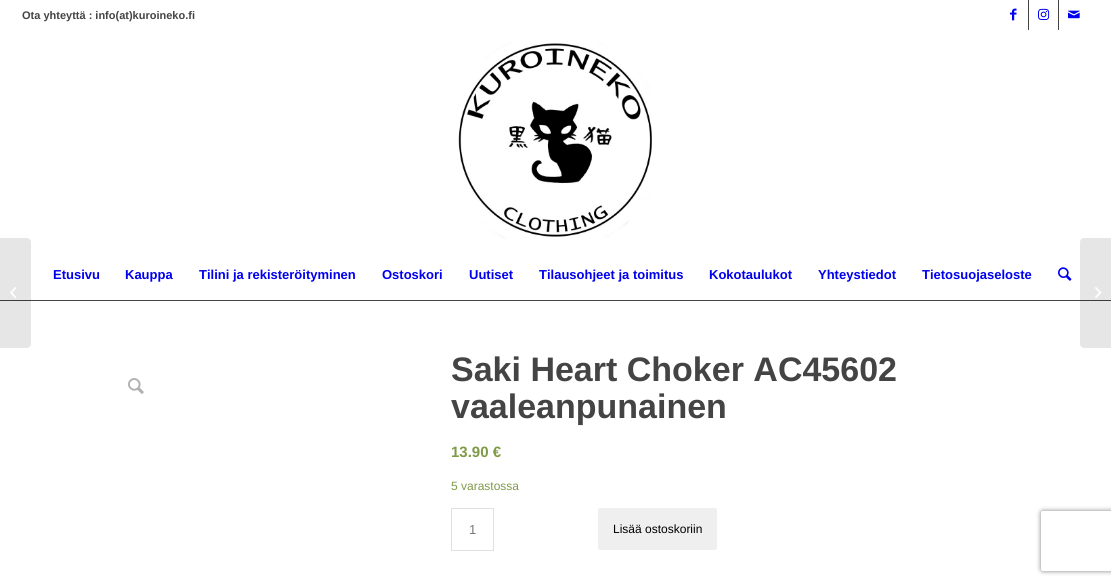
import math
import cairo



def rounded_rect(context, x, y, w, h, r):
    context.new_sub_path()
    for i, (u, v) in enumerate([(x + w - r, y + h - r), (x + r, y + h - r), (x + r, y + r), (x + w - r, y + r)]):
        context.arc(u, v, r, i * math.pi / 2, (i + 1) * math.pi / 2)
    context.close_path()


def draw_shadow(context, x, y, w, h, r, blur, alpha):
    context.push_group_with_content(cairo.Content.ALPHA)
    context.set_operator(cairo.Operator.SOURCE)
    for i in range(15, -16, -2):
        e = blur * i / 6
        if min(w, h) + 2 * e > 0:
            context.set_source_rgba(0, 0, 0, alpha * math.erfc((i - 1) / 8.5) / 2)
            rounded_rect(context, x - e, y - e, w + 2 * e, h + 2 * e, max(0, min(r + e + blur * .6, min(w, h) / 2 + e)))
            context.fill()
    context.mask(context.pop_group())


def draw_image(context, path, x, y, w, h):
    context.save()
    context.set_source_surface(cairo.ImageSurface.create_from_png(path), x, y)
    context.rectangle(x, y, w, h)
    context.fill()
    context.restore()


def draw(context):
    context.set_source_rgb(1, 1, 1)
    context.paint()
    context.set_source_rgb(68 / 255, 68 / 255, 68 / 255)
    context.rectangle(1028, 0, 1, 30)
    context.fill()
    draw_image(context, "images/1.png", 1010, 8, 7, 13)
    context.rectangle(1058, 0, 1, 30)
    context.fill()
    draw_image(context, "images/2.png", 1038, 8, 12, 12)
    draw_image(context, "images/3.png", 1068, 10, 12, 9)
    draw_image(context, "images/4.png", 458, 42, 194, 197)
    draw_image(context, "images/5.png", 1058, 267, 14, 14)
    context.rectangle(0, 300, 1111, 1)
    context.fill()
    context.set_source_rgba(0, 0, 0, 0.1)
    context.new_path()
    context.move_to(0, 238)
    context.line_to(27, 238)
    context.curve_to(29, 238, 31, 240, 31, 242)
    context.line_to(31, 344)
    context.curve_to(31, 346, 29, 348, 27, 348)
    context.line_to(0, 348)
    context.close_path()
    context.fill()
    draw_image(context, "images/6.png", 10, 287, 7, 11)
    context.new_path()
    context.move_to(1084, 238)
    context.line_to(1111, 238)
    context.line_to(1111, 348)
    context.line_to(1084, 348)
    context.curve_to(1082, 348, 1080, 346, 1080, 344)
    context.line_to(1080, 242)
    context.curve_to(1080, 240, 1082, 238, 1084, 238)
    context.close_path()
    context.fill()
    draw_image(context, "images/7.png", 1095, 287, 7, 11)
    draw_image(context, "images/8.png", 128, 378, 16, 16)
    context.rectangle(451.5, 508.5, 42, 42)
    context.set_source_rgb(225 / 255, 225 / 255, 225 / 255)
    context.set_line_width(1)
    context.stroke()
    context.set_source_rgb(239 / 255, 239 / 255, 239 / 255)
    rounded_rect(context, 598, 508, 119, 42, 2)
    context.fill()
    context.save()
    context.set_fill_rule(cairo.FillRule.EVEN_ODD)
    context.new_path()
    context.move_to(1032, 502)
    context.line_to(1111, 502)
    context.line_to(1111, 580)
    context.line_to(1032, 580)
    context.close_path()
    context.move_to(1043, 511)
    context.line_to(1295, 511)
    context.curve_to(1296, 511, 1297, 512, 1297, 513)
    context.line_to(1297, 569)
    context.curve_to(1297, 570, 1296, 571, 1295, 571)
    context.line_to(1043, 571)
    context.curve_to(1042, 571, 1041, 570, 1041, 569)
    context.line_to(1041, 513)
    context.curve_to(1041, 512, 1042, 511, 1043, 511)
    context.close_path()
    context.clip()
    context.set_source_rgb(128 / 255, 128 / 255, 128 / 255)
    draw_shadow(context, 1041, 511, 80, 60, 2, 2.5, 1)
    context.restore()
    context.select_font_face("Liberation Sans", cairo.FontSlant.NORMAL, cairo.FontWeight.BOLD)
    context.set_font_size(11)
    context.set_source_rgb(68 / 255, 68 / 255, 68 / 255)
    context.move_to(22, 19)
    context.show_text("Ota yhteyttä : info(at)kuroineko.fi")
    context.set_font_size(13)
    context.set_source_rgb(0, 0, 238 / 255)
    context.move_to(53, 279)
    context.show_text("Etusivu")
    context.move_to(125, 279)
    context.show_text("Kauppa")
    context.move_to(199, 279)
    context.show_text("Tilini ja rekisteröityminen")
    context.move_to(382, 279)
    context.show_text("Ostoskori")
    context.move_to(469, 279)
    context.show_text("Uutiset")
    context.move_to(539, 279)
    context.show_text("Tilausohjeet ja toimitus")
    context.move_to(709, 279)
    context.show_text("Kokotaulukot")
    context.move_to(818, 279)
    context.show_text("Yhteystiedot")
    context.move_to(922, 279)
    context.show_text("Tietosuojaseloste")
    context.set_font_size(34)
    context.set_source_rgb(68 / 255, 68 / 255, 68 / 255)
    context.move_to(451, 381)
    context.show_text("Saki Heart Choker AC45602")
    context.move_to(451, 418)
    context.show_text("vaaleanpunainen")
    context.set_font_size(15)
    context.set_source_rgb(126 / 255, 154 / 255, 71 / 255)
    context.move_to(451, 457)
    context.show_text("13.90 €")
    context.select_font_face("Liberation Sans")
    context.set_font_size(12)
    context.move_to(451, 490)
    context.show_text("5 varastossa")
    context.set_font_size(13)
    context.set_source_rgb(119 / 255, 119 / 255, 119 / 255)
    context.move_to(469, 534)
    context.show_text("1")
    context.set_font_size(12)
    context.set_source_rgb(0, 0, 0)
    context.move_to(613, 533)
    context.show_text("Lisää ostoskoriin")


surface = cairo.ImageSurface(cairo.Format.RGB24, 1111, 585)
context = cairo.Context(surface)
options = cairo.FontOptions()
options.set_hint_metrics(cairo.HintMetrics.OFF)
options.set_hint_style(cairo.HintStyle.NONE)
context.set_font_options(options)
context.set_miter_limit(4)
draw(context)
surface.write_to_png("out.png")
